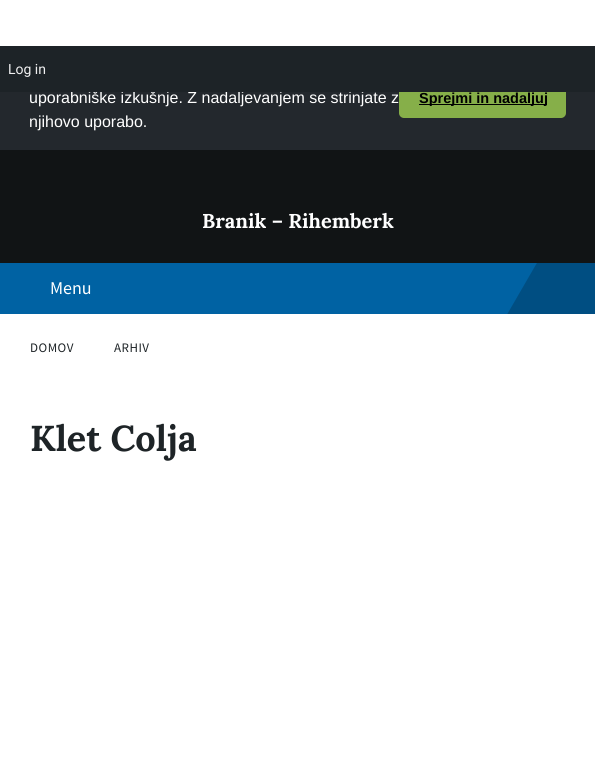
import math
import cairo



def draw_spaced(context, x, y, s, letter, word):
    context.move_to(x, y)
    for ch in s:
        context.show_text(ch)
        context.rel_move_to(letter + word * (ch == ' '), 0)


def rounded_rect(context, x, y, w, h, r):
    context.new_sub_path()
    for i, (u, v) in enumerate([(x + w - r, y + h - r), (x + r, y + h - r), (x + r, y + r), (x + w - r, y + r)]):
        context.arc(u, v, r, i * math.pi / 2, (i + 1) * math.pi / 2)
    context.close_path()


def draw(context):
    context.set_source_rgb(1, 1, 1)
    context.paint()
    context.set_source_rgb(35 / 255, 40 / 255, 45 / 255)
    context.rectangle(0, 92, 595, 58)
    context.fill()
    context.set_source_rgb(134 / 255, 175 / 255, 73 / 255)
    rounded_rect(context, 399, 78, 167, 40, 5)
    context.fill()
    context.set_source_rgb(0, 0, 0)
    context.rectangle(419, 104, 128, 1)
    context.fill()
    context.set_source_rgb(17 / 255, 20 / 255, 21 / 255)
    context.rectangle(0, 150, 595, 113)
    context.fill()
    context.set_source_rgb(0, 98 / 255, 163 / 255)
    context.rectangle(0, 263, 537, 51)
    context.fill()
    context.save()
    context.rectangle(0, 263, 595, 51)
    context.clip()
    context.set_source_rgb(0, 78 / 255, 130 / 255)
    context.new_path()
    context.move_to(556, 230)
    context.line_to(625, 270)
    context.line_to(574, 358)
    context.line_to(505, 318)
    context.close_path()
    context.fill()
    context.restore()
    context.select_font_face("Liberation Sans")
    context.set_font_size(16)
    context.set_source_rgb(1, 1, 1)
    context.move_to(29, 103)
    context.show_text("uporabniške izkušnje. Z nadaljevanjem se strinjate z")
    context.set_source_rgb(29 / 255, 35 / 255, 39 / 255)
    context.rectangle(0, 46, 595, 46)
    context.fill()
    context.select_font_face("Roboto")
    context.set_font_size(14)
    context.set_source_rgb(240 / 255, 240 / 255, 241 / 255)
    context.move_to(8, 74)
    context.show_text("Log in")
    context.select_font_face("Liberation Sans")
    context.set_font_size(16)
    context.set_source_rgb(1, 1, 1)
    context.move_to(29, 127)
    context.show_text("njihovo uporabo.")
    context.select_font_face("Liberation Sans", cairo.FontSlant.NORMAL, cairo.FontWeight.BOLD)
    context.set_font_size(14.5)
    context.set_source_rgb(0, 0, 0)
    context.move_to(419, 103)
    context.show_text("Sprejmi in nadaljuj")
    context.select_font_face("Lora", cairo.FontSlant.NORMAL, cairo.FontWeight.BOLD)
    context.set_font_size(20)
    context.set_source_rgb(1, 1, 1)
    context.move_to(202, 228)
    context.show_text("Branik – Rihemberk")
    context.select_font_face("Source Sans Pro")
    context.set_font_size(18)
    context.move_to(50, 294)
    context.show_text("Menu")
    context.set_font_size(13)
    context.set_source_rgb(30 / 255, 36 / 255, 39 / 255)
    draw_spaced(context, 30, 352, "DOMOV", 0.5, 0)
    draw_spaced(context, 114, 352, "ARHIV", 0.5, 0)
    context.select_font_face("Lora", cairo.FontSlant.NORMAL, cairo.FontWeight.BOLD)
    context.set_font_size(36)
    context.move_to(30, 451)
    context.show_text("Klet Colja")


surface = cairo.ImageSurface(cairo.Format.RGB24, 595, 759)
context = cairo.Context(surface)
options = cairo.FontOptions()
options.set_hint_metrics(cairo.HintMetrics.OFF)
options.set_hint_style(cairo.HintStyle.NONE)
context.set_font_options(options)
context.set_miter_limit(4)
draw(context)
surface.write_to_png("out.png")
